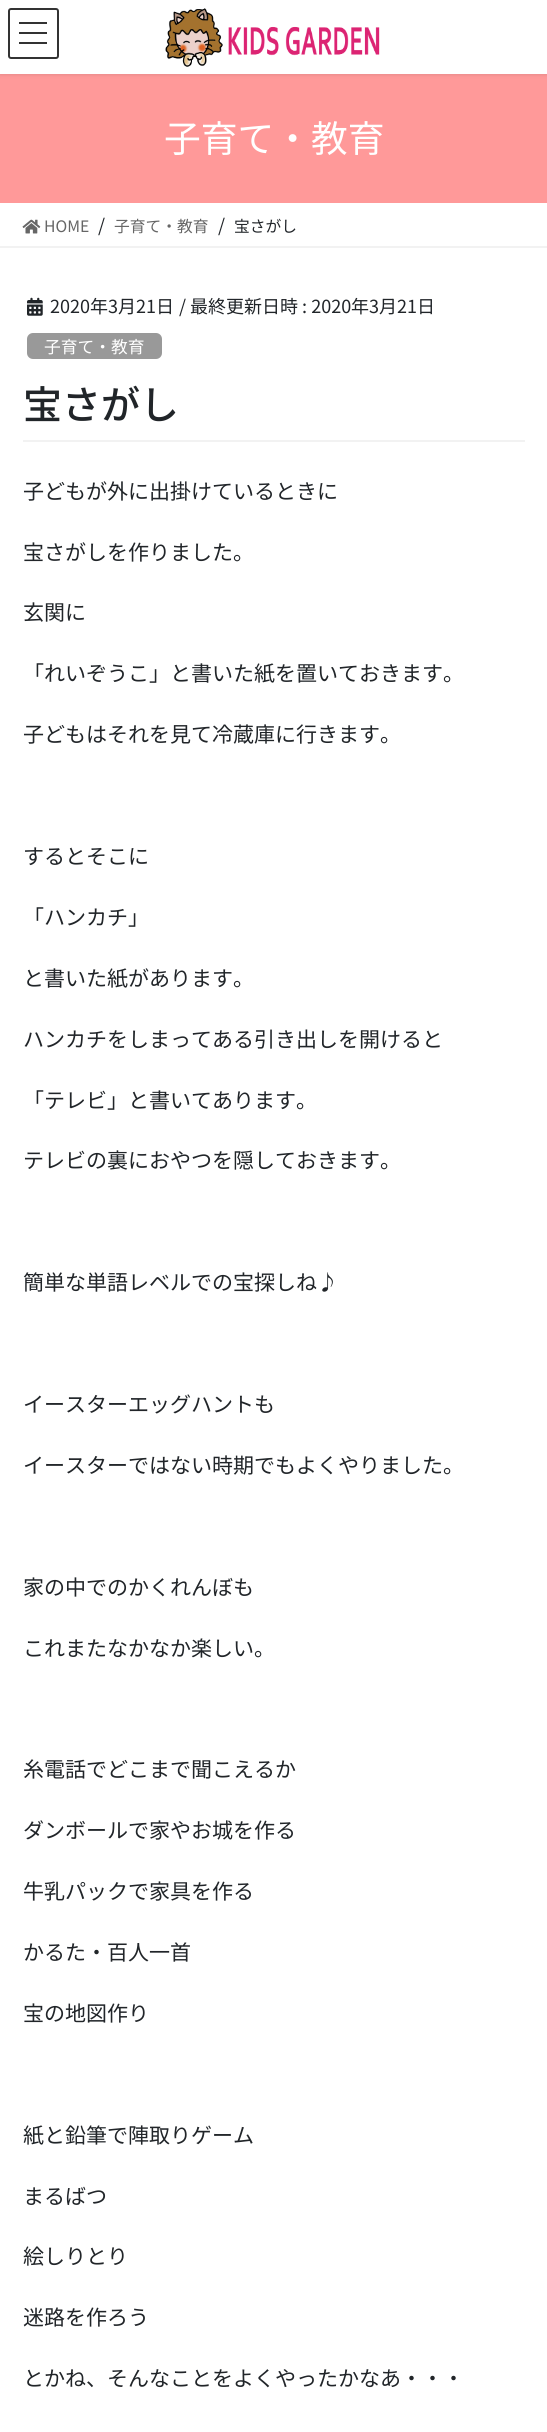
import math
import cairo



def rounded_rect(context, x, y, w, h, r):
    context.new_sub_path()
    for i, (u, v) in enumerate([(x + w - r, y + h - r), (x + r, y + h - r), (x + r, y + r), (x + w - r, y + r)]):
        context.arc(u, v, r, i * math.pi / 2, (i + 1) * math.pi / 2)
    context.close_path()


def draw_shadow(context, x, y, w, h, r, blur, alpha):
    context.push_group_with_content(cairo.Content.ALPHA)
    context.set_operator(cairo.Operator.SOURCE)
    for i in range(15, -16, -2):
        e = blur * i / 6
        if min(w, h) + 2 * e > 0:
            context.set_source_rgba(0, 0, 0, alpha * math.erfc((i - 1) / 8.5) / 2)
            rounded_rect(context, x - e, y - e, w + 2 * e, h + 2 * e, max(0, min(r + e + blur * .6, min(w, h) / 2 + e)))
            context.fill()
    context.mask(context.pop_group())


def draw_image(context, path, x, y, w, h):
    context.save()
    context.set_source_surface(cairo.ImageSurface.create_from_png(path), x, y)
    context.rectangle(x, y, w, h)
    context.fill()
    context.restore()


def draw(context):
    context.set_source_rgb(1, 1, 1)
    context.paint()
    context.set_source_rgb(1, 153 / 255, 153 / 255)
    context.rectangle(0, 74, 547, 129)
    context.fill()
    context.set_source_rgb(0, 0, 0)
    draw_shadow(context, 0, 2, 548, 73, 0, 2, 0.1)
    context.set_source_rgb(1, 1, 1)
    context.rectangle(0, 0, 547, 74)
    context.fill()
    draw_image(context, "images/1.png", 165, 8, 215, 59)
    context.set_source_rgb(51 / 255, 51 / 255, 51 / 255)
    context.rectangle(19, 22, 28, 2)
    context.fill()
    context.rectangle(19, 32, 28, 2)
    context.fill()
    context.rectangle(19, 42, 28, 2)
    context.fill()
    rounded_rect(context, 9, 9, 49, 49, 2)
    context.stroke()
    context.set_source_rgb(242 / 255, 242 / 255, 242 / 255)
    context.rectangle(0, 246, 547, 2)
    context.fill()
    draw_image(context, "images/2.png", 22, 219, 19, 15)
    context.rectangle(23, 440, 502, 2)
    context.fill()
    draw_image(context, "images/3.png", 27, 297, 16, 19)
    context.set_source_rgb(153 / 255, 153 / 255, 153 / 255)
    rounded_rect(context, 27, 333, 135, 26, 6)
    context.fill()
    context.select_font_face("Noto Sans JP")
    context.set_font_size(36.75)
    context.set_source_rgb(1, 1, 1)
    context.move_to(164, 152)
    context.show_text("子育て・教育")
    context.set_font_size(15.75)
    context.set_source_rgb(102 / 255, 102 / 255, 102 / 255)
    context.move_to(44, 232)
    context.show_text("HOME")
    context.set_font_size(18)
    context.set_source_rgb(33 / 255, 37 / 255, 41 / 255)
    context.move_to(98, 232)
    context.show_text("/")
    context.set_font_size(15.75)
    context.set_source_rgb(102 / 255, 102 / 255, 102 / 255)
    context.move_to(114, 232)
    context.show_text("子育て・教育")
    context.set_font_size(18)
    context.set_source_rgb(33 / 255, 37 / 255, 41 / 255)
    context.move_to(218, 232)
    context.show_text("/")
    context.set_font_size(15.75)
    context.move_to(234, 232)
    context.show_text("宝さがし")
    context.set_font_size(18)
    context.move_to(50, 313)
    context.show_text("2020年3月21日")
    context.move_to(179, 313)
    context.show_text("/ 最終更新日時 : 2020年3月21日")
    context.set_font_size(16.75)
    context.set_source_rgb(1, 1, 1)
    context.move_to(44, 353)
    context.show_text("子育て・教育")
    context.select_font_face("Noto Sans JP Medium")
    context.set_font_size(39)
    context.set_source_rgb(33 / 255, 37 / 255, 41 / 255)
    context.move_to(23, 419)
    context.show_text("宝さがし")
    context.select_font_face("Noto Sans JP")
    context.set_font_size(21)
    context.move_to(23, 499)
    context.show_text("子どもが外に出掛けているときに")
    context.move_to(23, 560)
    context.show_text("宝さがしを作りました。")
    context.move_to(23, 620)
    context.show_text("玄関に")
    context.move_to(23, 681)
    context.show_text("「れいぞうこ」と書いた紙を置いておきます。")
    context.move_to(23, 742)
    context.show_text("子どもはそれを見て冷蔵庫に行きます。")
    context.move_to(23, 864)
    context.show_text("するとそこに")
    context.move_to(23, 925)
    context.show_text("「ハンカチ」")
    context.move_to(23, 986)
    context.show_text("と書いた紙があります。")
    context.move_to(23, 1047)
    context.show_text("ハンカチをしまってある引き出しを開けると")
    context.move_to(23, 1108)
    context.show_text("「テレビ」と書いてあります。")
    context.move_to(23, 1168)
    context.show_text("テレビの裏におやつを隠しておきます。")
    context.move_to(23, 1290)
    context.show_text("簡単な単語レベルでの宝探しね♪")
    context.move_to(23, 1412)
    context.show_text("イースターエッグハントも")
    context.move_to(23, 1473)
    context.show_text("イースターではない時期でもよくやりました。")
    context.move_to(23, 1595)
    context.show_text("家の中でのかくれんぼも")
    context.move_to(23, 1656)
    context.show_text("これまたなかなか楽しい。")
    context.move_to(23, 1777)
    context.show_text("糸電話でどこまで聞こえるか")
    context.move_to(23, 1838)
    context.show_text("ダンボールで家やお城を作る")
    context.move_to(23, 1899)
    context.show_text("牛乳パックで家具を作る")
    context.move_to(23, 1960)
    context.show_text("かるた・百人一首")
    context.move_to(23, 2021)
    context.show_text("宝の地図作り")
    context.move_to(23, 2143)
    context.show_text("紙と鉛筆で陣取りゲーム")
    context.move_to(23, 2204)
    context.show_text("まるばつ")
    context.move_to(23, 2264)
    context.show_text("絵しりとり")
    context.move_to(23, 2325)
    context.show_text("迷路を作ろう")
    context.move_to(23, 2386)
    context.show_text("とかね、そんなことをよくやったかなあ・・・")


surface = cairo.ImageSurface(cairo.Format.RGB24, 547, 2432)
context = cairo.Context(surface)
options = cairo.FontOptions()
options.set_hint_metrics(cairo.HintMetrics.OFF)
options.set_hint_style(cairo.HintStyle.NONE)
context.set_font_options(options)
context.set_miter_limit(4)
draw(context)
surface.write_to_png("out.png")
